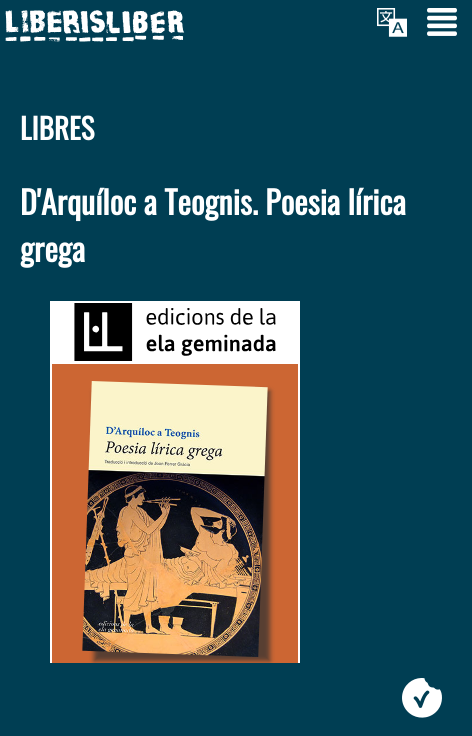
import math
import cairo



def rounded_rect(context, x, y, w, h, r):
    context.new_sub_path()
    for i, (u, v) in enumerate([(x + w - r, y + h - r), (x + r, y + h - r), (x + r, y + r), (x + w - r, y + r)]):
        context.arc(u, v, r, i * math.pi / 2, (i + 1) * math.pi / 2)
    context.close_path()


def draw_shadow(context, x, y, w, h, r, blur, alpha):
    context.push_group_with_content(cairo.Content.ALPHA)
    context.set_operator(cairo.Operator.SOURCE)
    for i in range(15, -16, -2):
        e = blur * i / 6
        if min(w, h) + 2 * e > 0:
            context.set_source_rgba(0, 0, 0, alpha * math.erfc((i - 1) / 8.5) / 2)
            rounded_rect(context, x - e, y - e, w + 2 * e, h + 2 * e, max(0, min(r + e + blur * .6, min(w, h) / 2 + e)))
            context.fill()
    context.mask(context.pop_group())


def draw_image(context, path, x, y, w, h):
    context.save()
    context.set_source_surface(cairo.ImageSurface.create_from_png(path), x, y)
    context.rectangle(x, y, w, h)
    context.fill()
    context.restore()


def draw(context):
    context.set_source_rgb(0, 62 / 255, 83 / 255)
    context.paint()
    draw_image(context, "images/1.png", 5, 10, 180, 32)
    draw_image(context, "images/2.png", 377, 8, 30, 29)
    draw_image(context, "images/3.png", 427, 8, 30, 28)
    context.set_source_rgb(204 / 255, 102 / 255, 51 / 255)
    context.rectangle(52, 364, 246, 299)
    context.fill()
    context.rectangle(51, 302, 248, 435)
    context.set_source_rgb(1, 1, 1)
    context.stroke()
    context.rectangle(52, 303, 246, 61)
    context.fill()
    draw_image(context, "images/4.png", 74, 303, 202, 58)
    context.set_source_rgb(50 / 255, 50 / 255, 50 / 255)
    draw_shadow(context, 94, 391, 176, 270, 0, 2.5, 0.75)
    draw_image(context, "images/5.png", 82, 381, 186, 276)
    context.set_source_rgb(0, 62 / 255, 83 / 255)
    context.rectangle(50, 663, 250, 73)
    context.fill()
    draw_image(context, "images/6.png", 402, 678, 40, 40)
    context.select_font_face("Oswald", cairo.FontSlant.NORMAL, cairo.FontWeight.BOLD)
    context.set_font_size(29)
    context.set_source_rgb(1, 1, 1)
    context.move_to(20, 140)
    context.show_text("LIBRES")
    context.set_font_size(32)
    context.move_to(20, 215)
    context.show_text("D'Arquíloc a Teognis. Poesia lírica")
    context.move_to(20, 262)
    context.show_text("grega")


surface = cairo.ImageSurface(cairo.Format.RGB24, 472, 736)
context = cairo.Context(surface)
options = cairo.FontOptions()
options.set_hint_metrics(cairo.HintMetrics.OFF)
options.set_hint_style(cairo.HintStyle.NONE)
context.set_font_options(options)
context.set_miter_limit(4)
draw(context)
surface.write_to_png("out.png")
